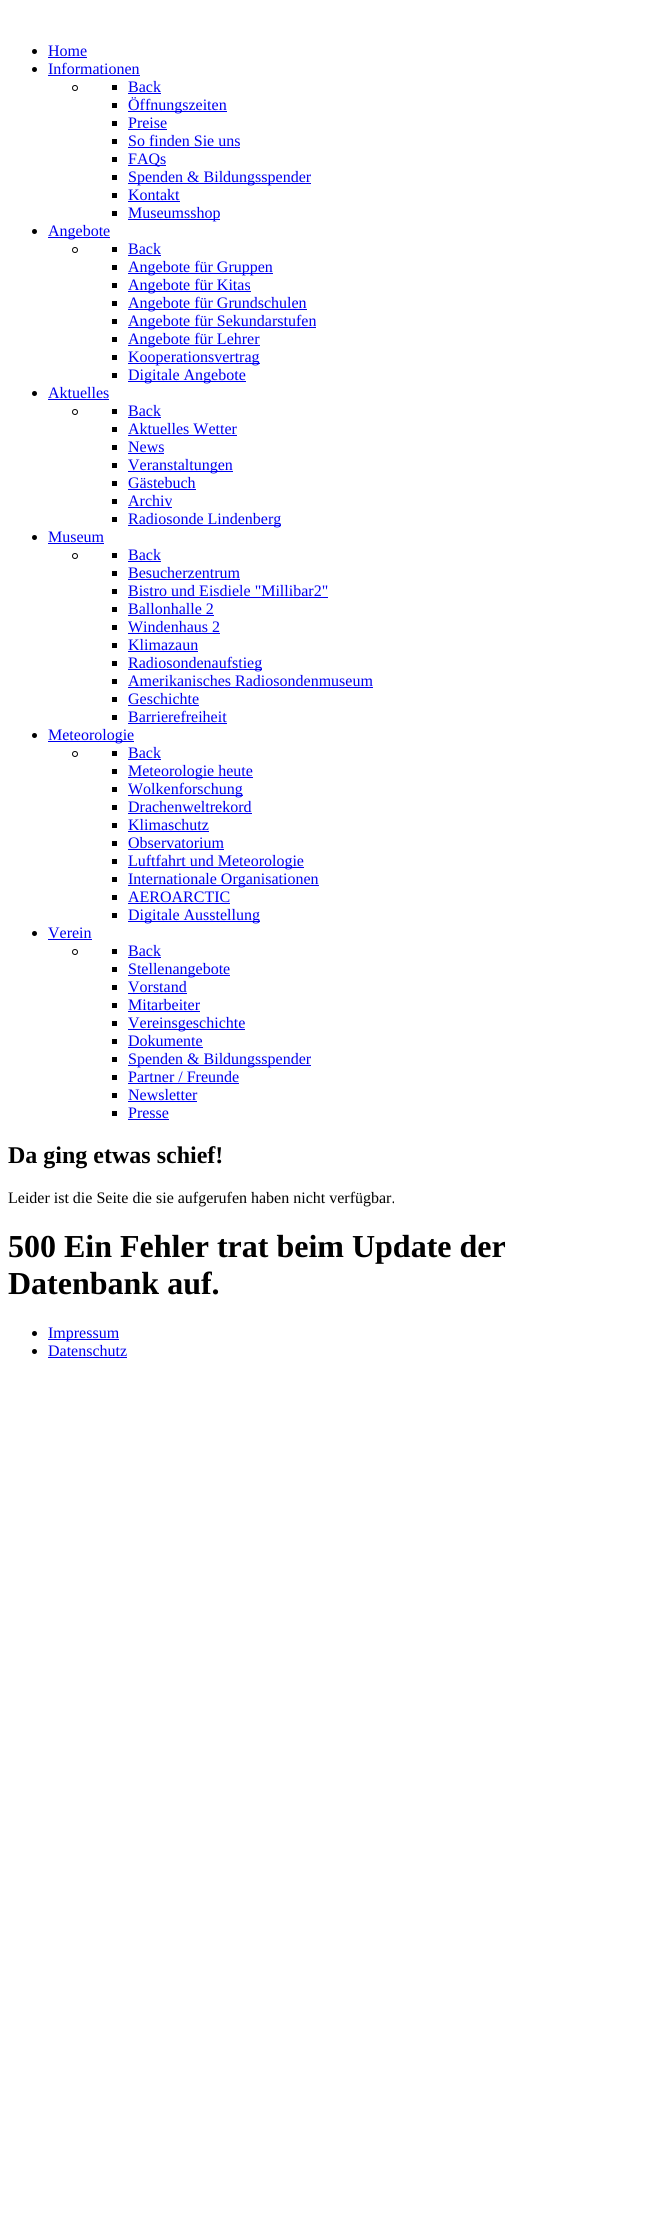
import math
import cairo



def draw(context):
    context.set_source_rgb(1, 1, 1)
    context.paint()
    context.set_source_rgb(0, 0, 0)
    context.arc(34.5, 51.5, 2.5, 0, 2 * math.pi)
    context.fill()
    context.set_source_rgb(0, 0, 238 / 255)
    context.rectangle(48, 57, 39, 1)
    context.fill()
    context.set_source_rgb(0, 0, 0)
    context.arc(34.5, 69.5, 2.5, 0, 2 * math.pi)
    context.fill()
    context.set_source_rgb(0, 0, 238 / 255)
    context.rectangle(48, 75, 92, 1)
    context.fill()
    context.arc(75, 88, 2.5, 0, 2 * math.pi)
    context.set_source_rgb(0, 0, 0)
    context.set_line_width(1)
    context.stroke()
    context.rectangle(112, 85, 5, 5)
    context.fill()
    context.set_source_rgb(0, 0, 238 / 255)
    context.rectangle(128, 93, 33, 1)
    context.fill()
    context.set_source_rgb(0, 0, 0)
    context.rectangle(112, 103, 5, 5)
    context.fill()
    context.set_source_rgb(0, 0, 238 / 255)
    context.rectangle(128, 111, 99, 1)
    context.fill()
    context.set_source_rgb(0, 0, 0)
    context.rectangle(112, 121, 5, 5)
    context.fill()
    context.set_source_rgb(0, 0, 238 / 255)
    context.rectangle(128, 129, 39, 1)
    context.fill()
    context.set_source_rgb(0, 0, 0)
    context.rectangle(112, 139, 5, 5)
    context.fill()
    context.set_source_rgb(0, 0, 238 / 255)
    context.rectangle(128, 147, 112, 1)
    context.fill()
    context.set_source_rgb(0, 0, 0)
    context.rectangle(112, 157, 5, 5)
    context.fill()
    context.set_source_rgb(0, 0, 238 / 255)
    context.rectangle(128, 165, 38, 1)
    context.fill()
    context.set_source_rgb(0, 0, 0)
    context.rectangle(112, 175, 5, 5)
    context.fill()
    context.set_source_rgb(0, 0, 238 / 255)
    context.rectangle(128, 183, 183, 1)
    context.fill()
    context.set_source_rgb(0, 0, 0)
    context.rectangle(112, 193, 5, 5)
    context.fill()
    context.set_source_rgb(0, 0, 238 / 255)
    context.rectangle(128, 201, 52, 1)
    context.fill()
    context.set_source_rgb(0, 0, 0)
    context.rectangle(112, 211, 5, 5)
    context.fill()
    context.set_source_rgb(0, 0, 238 / 255)
    context.rectangle(128, 219, 92, 1)
    context.fill()
    context.set_source_rgb(0, 0, 0)
    context.arc(34.5, 231.5, 2.5, 0, 2 * math.pi)
    context.fill()
    context.set_source_rgb(0, 0, 238 / 255)
    context.rectangle(48, 237, 62, 1)
    context.fill()
    context.arc(75, 250, 2.5, 0, 2 * math.pi)
    context.set_source_rgb(0, 0, 0)
    context.stroke()
    context.rectangle(112, 247, 5, 5)
    context.fill()
    context.set_source_rgb(0, 0, 238 / 255)
    context.rectangle(128, 255, 33, 1)
    context.fill()
    context.set_source_rgb(0, 0, 0)
    context.rectangle(112, 265, 5, 5)
    context.fill()
    context.set_source_rgb(0, 0, 238 / 255)
    context.rectangle(128, 273, 145, 1)
    context.fill()
    context.set_source_rgb(0, 0, 0)
    context.rectangle(112, 283, 5, 5)
    context.fill()
    context.set_source_rgb(0, 0, 238 / 255)
    context.rectangle(128, 291, 123, 1)
    context.fill()
    context.set_source_rgb(0, 0, 0)
    context.rectangle(112, 301, 5, 5)
    context.fill()
    context.set_source_rgb(0, 0, 238 / 255)
    context.rectangle(128, 309, 179, 1)
    context.fill()
    context.set_source_rgb(0, 0, 0)
    context.rectangle(112, 319, 5, 5)
    context.fill()
    context.set_source_rgb(0, 0, 238 / 255)
    context.rectangle(128, 327, 188, 1)
    context.fill()
    context.set_source_rgb(0, 0, 0)
    context.rectangle(112, 337, 5, 5)
    context.fill()
    context.set_source_rgb(0, 0, 238 / 255)
    context.rectangle(128, 345, 132, 1)
    context.fill()
    context.set_source_rgb(0, 0, 0)
    context.rectangle(112, 355, 5, 5)
    context.fill()
    context.set_source_rgb(0, 0, 238 / 255)
    context.rectangle(128, 363, 132, 1)
    context.fill()
    context.set_source_rgb(0, 0, 0)
    context.rectangle(112, 373, 5, 5)
    context.fill()
    context.set_source_rgb(0, 0, 238 / 255)
    context.rectangle(128, 381, 118, 1)
    context.fill()
    context.set_source_rgb(0, 0, 0)
    context.arc(34.5, 393.5, 2.5, 0, 2 * math.pi)
    context.fill()
    context.set_source_rgb(0, 0, 238 / 255)
    context.rectangle(48, 399, 61, 1)
    context.fill()
    context.arc(75, 412, 2.5, 0, 2 * math.pi)
    context.set_source_rgb(0, 0, 0)
    context.stroke()
    context.rectangle(112, 409, 5, 5)
    context.fill()
    context.set_source_rgb(0, 0, 238 / 255)
    context.rectangle(128, 417, 33, 1)
    context.fill()
    context.set_source_rgb(0, 0, 0)
    context.rectangle(112, 427, 5, 5)
    context.fill()
    context.set_source_rgb(0, 0, 238 / 255)
    context.rectangle(128, 435, 109, 1)
    context.fill()
    context.set_source_rgb(0, 0, 0)
    context.rectangle(112, 445, 5, 5)
    context.fill()
    context.set_source_rgb(0, 0, 238 / 255)
    context.rectangle(128, 453, 36, 1)
    context.fill()
    context.set_source_rgb(0, 0, 0)
    context.rectangle(112, 463, 5, 5)
    context.fill()
    context.set_source_rgb(0, 0, 238 / 255)
    context.rectangle(128, 471, 105, 1)
    context.fill()
    context.set_source_rgb(0, 0, 0)
    context.rectangle(112, 481, 5, 5)
    context.fill()
    context.set_source_rgb(0, 0, 238 / 255)
    context.rectangle(128, 489, 68, 1)
    context.fill()
    context.set_source_rgb(0, 0, 0)
    context.rectangle(112, 499, 5, 5)
    context.fill()
    context.set_source_rgb(0, 0, 238 / 255)
    context.rectangle(128, 507, 44, 1)
    context.fill()
    context.set_source_rgb(0, 0, 0)
    context.rectangle(112, 517, 5, 5)
    context.fill()
    context.set_source_rgb(0, 0, 238 / 255)
    context.rectangle(128, 525, 153, 1)
    context.fill()
    context.set_source_rgb(0, 0, 0)
    context.arc(34.5, 537.5, 2.5, 0, 2 * math.pi)
    context.fill()
    context.set_source_rgb(0, 0, 238 / 255)
    context.rectangle(48, 543, 56, 1)
    context.fill()
    context.arc(75, 556, 2.5, 0, 2 * math.pi)
    context.set_source_rgb(0, 0, 0)
    context.stroke()
    context.rectangle(112, 553, 5, 5)
    context.fill()
    context.set_source_rgb(0, 0, 238 / 255)
    context.rectangle(128, 561, 33, 1)
    context.fill()
    context.set_source_rgb(0, 0, 0)
    context.rectangle(112, 571, 5, 5)
    context.fill()
    context.set_source_rgb(0, 0, 238 / 255)
    context.rectangle(128, 579, 112, 1)
    context.fill()
    context.set_source_rgb(0, 0, 0)
    context.rectangle(112, 589, 5, 5)
    context.fill()
    context.set_source_rgb(0, 0, 238 / 255)
    context.rectangle(128, 597, 200, 1)
    context.fill()
    context.set_source_rgb(0, 0, 0)
    context.rectangle(112, 607, 5, 5)
    context.fill()
    context.set_source_rgb(0, 0, 238 / 255)
    context.rectangle(128, 615, 86, 1)
    context.fill()
    context.set_source_rgb(0, 0, 0)
    context.rectangle(112, 625, 5, 5)
    context.fill()
    context.set_source_rgb(0, 0, 238 / 255)
    context.rectangle(128, 633, 92, 1)
    context.fill()
    context.set_source_rgb(0, 0, 0)
    context.rectangle(112, 643, 5, 5)
    context.fill()
    context.set_source_rgb(0, 0, 238 / 255)
    context.rectangle(128, 651, 70, 1)
    context.fill()
    context.set_source_rgb(0, 0, 0)
    context.rectangle(112, 661, 5, 5)
    context.fill()
    context.set_source_rgb(0, 0, 238 / 255)
    context.rectangle(128, 669, 134, 1)
    context.fill()
    context.set_source_rgb(0, 0, 0)
    context.rectangle(112, 679, 5, 5)
    context.fill()
    context.set_source_rgb(0, 0, 238 / 255)
    context.rectangle(128, 687, 245, 1)
    context.fill()
    context.set_source_rgb(0, 0, 0)
    context.rectangle(112, 697, 5, 5)
    context.fill()
    context.set_source_rgb(0, 0, 238 / 255)
    context.rectangle(128, 705, 71, 1)
    context.fill()
    context.set_source_rgb(0, 0, 0)
    context.rectangle(112, 715, 5, 5)
    context.fill()
    context.set_source_rgb(0, 0, 238 / 255)
    context.rectangle(128, 723, 99, 1)
    context.fill()
    context.set_source_rgb(0, 0, 0)
    context.arc(34.5, 735.5, 2.5, 0, 2 * math.pi)
    context.fill()
    context.set_source_rgb(0, 0, 238 / 255)
    context.rectangle(48, 741, 86, 1)
    context.fill()
    context.arc(75, 754, 2.5, 0, 2 * math.pi)
    context.set_source_rgb(0, 0, 0)
    context.stroke()
    context.rectangle(112, 751, 5, 5)
    context.fill()
    context.set_source_rgb(0, 0, 238 / 255)
    context.rectangle(128, 759, 33, 1)
    context.fill()
    context.set_source_rgb(0, 0, 0)
    context.rectangle(112, 769, 5, 5)
    context.fill()
    context.set_source_rgb(0, 0, 238 / 255)
    context.rectangle(128, 777, 125, 1)
    context.fill()
    context.set_source_rgb(0, 0, 0)
    context.rectangle(112, 787, 5, 5)
    context.fill()
    context.set_source_rgb(0, 0, 238 / 255)
    context.rectangle(128, 795, 115, 1)
    context.fill()
    context.set_source_rgb(0, 0, 0)
    context.rectangle(112, 805, 5, 5)
    context.fill()
    context.set_source_rgb(0, 0, 238 / 255)
    context.rectangle(128, 813, 124, 1)
    context.fill()
    context.set_source_rgb(0, 0, 0)
    context.rectangle(112, 823, 5, 5)
    context.fill()
    context.set_source_rgb(0, 0, 238 / 255)
    context.rectangle(128, 831, 81, 1)
    context.fill()
    context.set_source_rgb(0, 0, 0)
    context.rectangle(112, 841, 5, 5)
    context.fill()
    context.set_source_rgb(0, 0, 238 / 255)
    context.rectangle(128, 849, 96, 1)
    context.fill()
    context.set_source_rgb(0, 0, 0)
    context.rectangle(112, 859, 5, 5)
    context.fill()
    context.set_source_rgb(0, 0, 238 / 255)
    context.rectangle(128, 867, 176, 1)
    context.fill()
    context.set_source_rgb(0, 0, 0)
    context.rectangle(112, 877, 5, 5)
    context.fill()
    context.set_source_rgb(0, 0, 238 / 255)
    context.rectangle(128, 885, 191, 1)
    context.fill()
    context.set_source_rgb(0, 0, 0)
    context.rectangle(112, 895, 5, 5)
    context.fill()
    context.set_source_rgb(0, 0, 238 / 255)
    context.rectangle(128, 903, 102, 1)
    context.fill()
    context.set_source_rgb(0, 0, 0)
    context.rectangle(112, 913, 5, 5)
    context.fill()
    context.set_source_rgb(0, 0, 238 / 255)
    context.rectangle(128, 921, 132, 1)
    context.fill()
    context.set_source_rgb(0, 0, 0)
    context.arc(34.5, 933.5, 2.5, 0, 2 * math.pi)
    context.fill()
    context.set_source_rgb(0, 0, 238 / 255)
    context.rectangle(48, 939, 44, 1)
    context.fill()
    context.arc(75, 952, 2.5, 0, 2 * math.pi)
    context.set_source_rgb(0, 0, 0)
    context.stroke()
    context.rectangle(112, 949, 5, 5)
    context.fill()
    context.set_source_rgb(0, 0, 238 / 255)
    context.rectangle(128, 957, 33, 1)
    context.fill()
    context.set_source_rgb(0, 0, 0)
    context.rectangle(112, 967, 5, 5)
    context.fill()
    context.set_source_rgb(0, 0, 238 / 255)
    context.rectangle(128, 975, 102, 1)
    context.fill()
    context.set_source_rgb(0, 0, 0)
    context.rectangle(112, 985, 5, 5)
    context.fill()
    context.set_source_rgb(0, 0, 238 / 255)
    context.rectangle(128, 993, 59, 1)
    context.fill()
    context.set_source_rgb(0, 0, 0)
    context.rectangle(112, 1003, 5, 5)
    context.fill()
    context.set_source_rgb(0, 0, 238 / 255)
    context.rectangle(128, 1011, 72, 1)
    context.fill()
    context.set_source_rgb(0, 0, 0)
    context.rectangle(112, 1021, 5, 5)
    context.fill()
    context.set_source_rgb(0, 0, 238 / 255)
    context.rectangle(128, 1029, 117, 1)
    context.fill()
    context.set_source_rgb(0, 0, 0)
    context.rectangle(112, 1039, 5, 5)
    context.fill()
    context.set_source_rgb(0, 0, 238 / 255)
    context.rectangle(128, 1047, 75, 1)
    context.fill()
    context.set_source_rgb(0, 0, 0)
    context.rectangle(112, 1057, 5, 5)
    context.fill()
    context.set_source_rgb(0, 0, 238 / 255)
    context.rectangle(128, 1065, 183, 1)
    context.fill()
    context.set_source_rgb(0, 0, 0)
    context.rectangle(112, 1075, 5, 5)
    context.fill()
    context.set_source_rgb(0, 0, 238 / 255)
    context.rectangle(128, 1083, 111, 1)
    context.fill()
    context.set_source_rgb(0, 0, 0)
    context.rectangle(112, 1093, 5, 5)
    context.fill()
    context.set_source_rgb(0, 0, 238 / 255)
    context.rectangle(128, 1101, 69, 1)
    context.fill()
    context.set_source_rgb(0, 0, 0)
    context.rectangle(112, 1111, 5, 5)
    context.fill()
    context.set_source_rgb(0, 0, 238 / 255)
    context.rectangle(128, 1119, 41, 1)
    context.fill()
    context.set_source_rgb(0, 0, 0)
    context.arc(34.5, 1333.5, 2.5, 0, 2 * math.pi)
    context.fill()
    context.set_source_rgb(0, 0, 238 / 255)
    context.rectangle(48, 1339, 71, 1)
    context.fill()
    context.set_source_rgb(0, 0, 0)
    context.arc(34.5, 1351.5, 2.5, 0, 2 * math.pi)
    context.fill()
    context.set_source_rgb(0, 0, 238 / 255)
    context.rectangle(48, 1357, 79, 1)
    context.fill()
    context.select_font_face("Liberation Serif")
    context.set_font_size(16)
    context.move_to(48, 56)
    context.show_text("Home")
    context.move_to(48, 74)
    context.show_text("Informationen")
    context.move_to(128, 92)
    context.show_text("Back")
    context.move_to(128, 110)
    context.show_text("Öffnungszeiten")
    context.move_to(128, 128)
    context.show_text("Preise")
    context.move_to(128, 146)
    context.show_text("So finden Sie uns")
    context.move_to(128, 164)
    context.show_text("FAQs")
    context.move_to(128, 182)
    context.show_text("Spenden & Bildungsspender")
    context.move_to(128, 200)
    context.show_text("Kontakt")
    context.move_to(128, 218)
    context.show_text("Museumsshop")
    context.move_to(48, 236)
    context.show_text("Angebote")
    context.move_to(128, 254)
    context.show_text("Back")
    context.move_to(128, 272)
    context.show_text("Angebote für Gruppen")
    context.move_to(128, 290)
    context.show_text("Angebote für Kitas")
    context.move_to(128, 308)
    context.show_text("Angebote für Grundschulen")
    context.move_to(128, 326)
    context.show_text("Angebote für Sekundarstufen")
    context.move_to(128, 344)
    context.show_text("Angebote für Lehrer")
    context.move_to(128, 362)
    context.show_text("Kooperationsvertrag")
    context.move_to(128, 380)
    context.show_text("Digitale Angebote")
    context.move_to(48, 398)
    context.show_text("Aktuelles")
    context.move_to(128, 416)
    context.show_text("Back")
    context.move_to(128, 434)
    context.show_text("Aktuelles Wetter")
    context.move_to(128, 452)
    context.show_text("News")
    context.move_to(128, 470)
    context.show_text("Veranstaltungen")
    context.move_to(128, 488)
    context.show_text("Gästebuch")
    context.move_to(128, 506)
    context.show_text("Archiv")
    context.move_to(128, 524)
    context.show_text("Radiosonde Lindenberg")
    context.move_to(48, 542)
    context.show_text("Museum")
    context.move_to(128, 560)
    context.show_text("Back")
    context.move_to(128, 578)
    context.show_text("Besucherzentrum")
    context.move_to(128, 596)
    context.show_text("Bistro und Eisdiele \"Millibar2\"")
    context.move_to(128, 614)
    context.show_text("Ballonhalle 2")
    context.move_to(128, 632)
    context.show_text("Windenhaus 2")
    context.move_to(128, 650)
    context.show_text("Klimazaun")
    context.move_to(128, 668)
    context.show_text("Radiosondenaufstieg")
    context.move_to(128, 686)
    context.show_text("Amerikanisches Radiosondenmuseum")
    context.move_to(128, 704)
    context.show_text("Geschichte")
    context.move_to(128, 722)
    context.show_text("Barrierefreiheit")
    context.move_to(48, 740)
    context.show_text("Meteorologie")
    context.move_to(128, 758)
    context.show_text("Back")
    context.move_to(128, 776)
    context.show_text("Meteorologie heute")
    context.move_to(128, 794)
    context.show_text("Wolkenforschung")
    context.move_to(128, 812)
    context.show_text("Drachenweltrekord")
    context.move_to(128, 830)
    context.show_text("Klimaschutz")
    context.move_to(128, 848)
    context.show_text("Observatorium")
    context.move_to(128, 866)
    context.show_text("Luftfahrt und Meteorologie")
    context.move_to(128, 884)
    context.show_text("Internationale Organisationen")
    context.move_to(128, 902)
    context.show_text("AEROARCTIC")
    context.move_to(128, 920)
    context.show_text("Digitale Ausstellung")
    context.move_to(48, 938)
    context.show_text("Verein")
    context.move_to(128, 956)
    context.show_text("Back")
    context.move_to(128, 974)
    context.show_text("Stellenangebote")
    context.move_to(128, 992)
    context.show_text("Vorstand")
    context.move_to(128, 1010)
    context.show_text("Mitarbeiter")
    context.move_to(128, 1028)
    context.show_text("Vereinsgeschichte")
    context.move_to(128, 1046)
    context.show_text("Dokumente")
    context.move_to(128, 1064)
    context.show_text("Spenden & Bildungsspender")
    context.move_to(128, 1082)
    context.show_text("Partner / Freunde")
    context.move_to(128, 1100)
    context.show_text("Newsletter")
    context.move_to(128, 1118)
    context.show_text("Presse")
    context.select_font_face("Liberation Serif", cairo.FontSlant.NORMAL, cairo.FontWeight.BOLD)
    context.set_font_size(24)
    context.set_source_rgb(0, 0, 0)
    context.move_to(8, 1163)
    context.show_text("Da ging etwas schief!")
    context.select_font_face("Liberation Serif")
    context.set_font_size(16)
    context.move_to(8, 1203)
    context.show_text("Leider ist die Seite die sie aufgerufen haben nicht verfügbar.")
    context.select_font_face("Liberation Serif", cairo.FontSlant.NORMAL, cairo.FontWeight.BOLD)
    context.set_font_size(32)
    context.move_to(8, 1257)
    context.show_text("500 Ein Fehler trat beim Update der")
    context.move_to(8, 1294)
    context.show_text("Datenbank auf.")
    context.select_font_face("Liberation Serif")
    context.set_font_size(16)
    context.set_source_rgb(0, 0, 238 / 255)
    context.move_to(48, 1338)
    context.show_text("Impressum")
    context.move_to(48, 1356)
    context.show_text("Datenschutz")


surface = cairo.ImageSurface(cairo.Format.RGB24, 647, 2219)
context = cairo.Context(surface)
options = cairo.FontOptions()
options.set_hint_metrics(cairo.HintMetrics.OFF)
options.set_hint_style(cairo.HintStyle.NONE)
context.set_font_options(options)
context.set_miter_limit(4)
draw(context)
surface.write_to_png("out.png")
